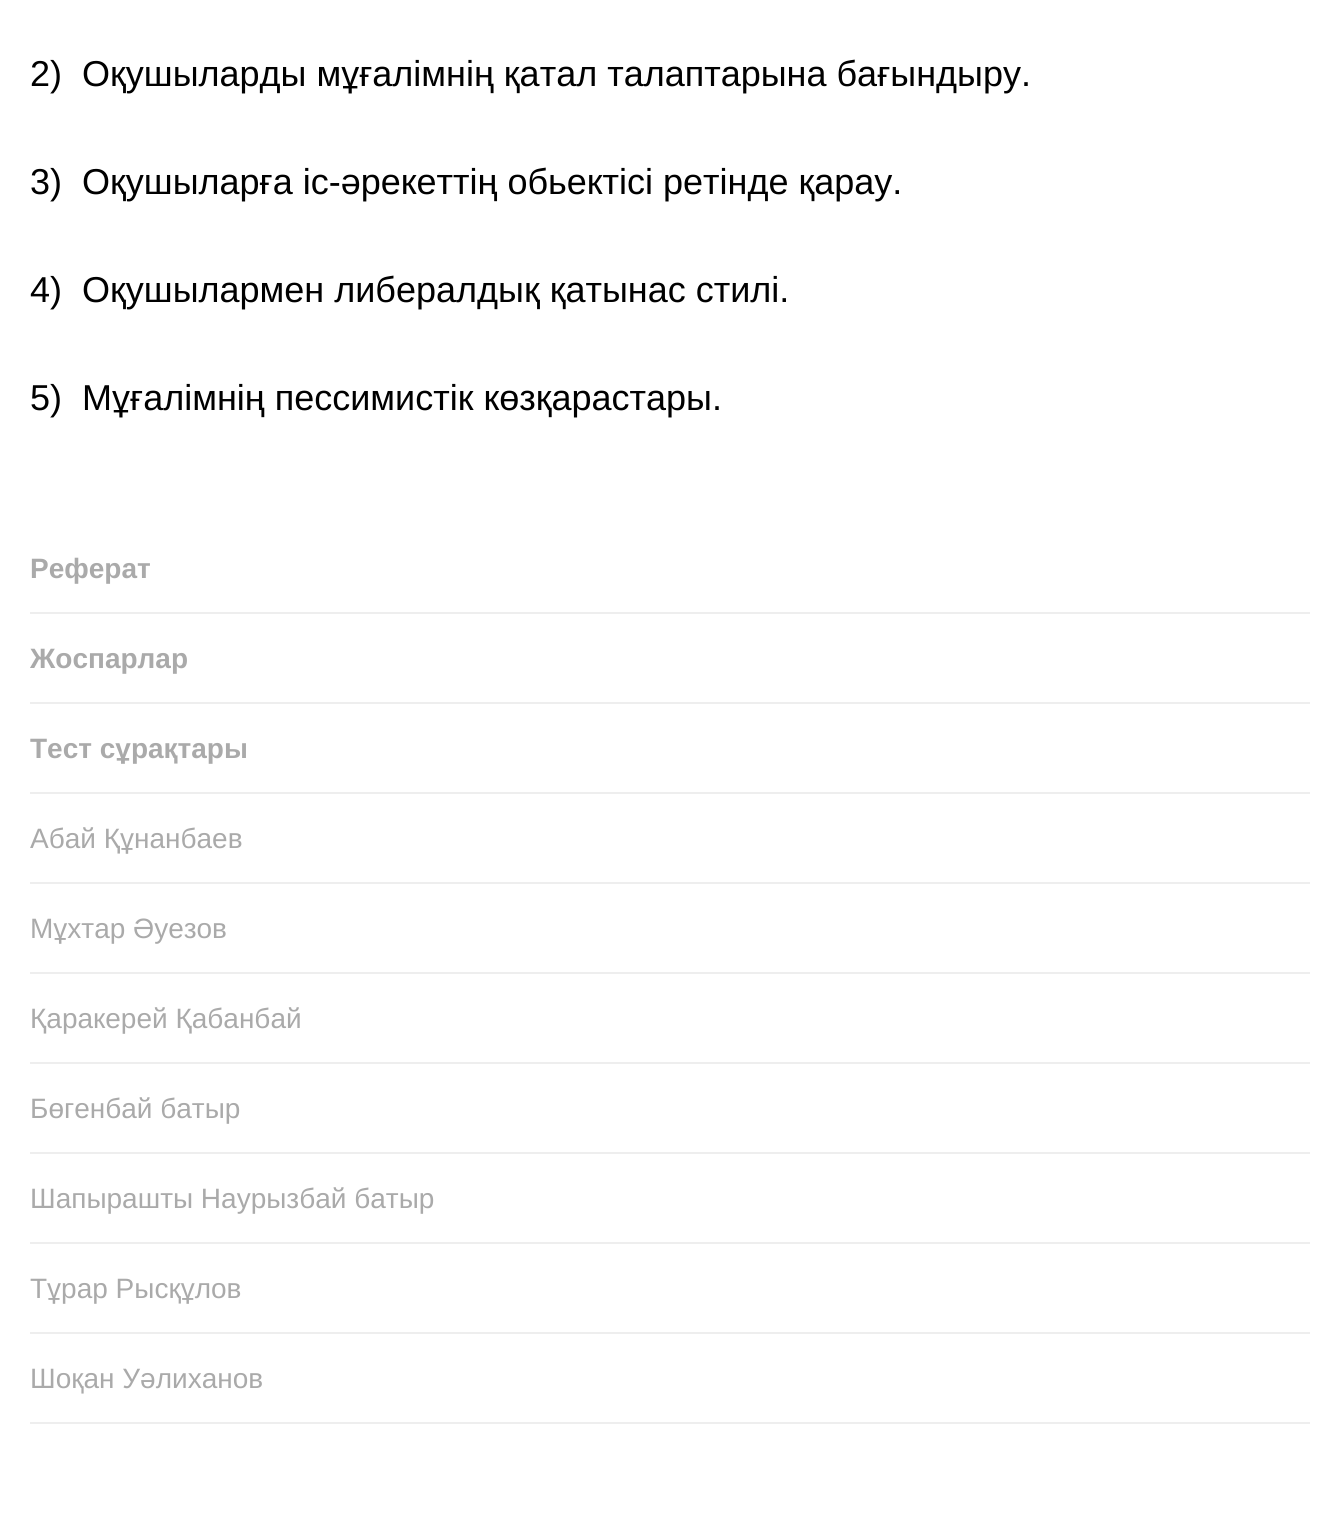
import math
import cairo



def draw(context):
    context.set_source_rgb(1, 1, 1)
    context.paint()
    context.set_source_rgb(238 / 255, 238 / 255, 238 / 255)
    context.rectangle(30, 612, 1280, 2)
    context.fill()
    context.rectangle(30, 702, 1280, 2)
    context.fill()
    context.rectangle(30, 792, 1280, 2)
    context.fill()
    context.rectangle(30, 882, 1280, 2)
    context.fill()
    context.rectangle(30, 972, 1280, 2)
    context.fill()
    context.rectangle(30, 1062, 1280, 2)
    context.fill()
    context.rectangle(30, 1152, 1280, 2)
    context.fill()
    context.rectangle(30, 1242, 1280, 2)
    context.fill()
    context.rectangle(30, 1332, 1280, 2)
    context.fill()
    context.rectangle(30, 1422, 1280, 2)
    context.fill()
    context.select_font_face("Liberation Sans")
    context.set_font_size(36)
    context.set_source_rgb(0, 0, 0)
    context.move_to(30, 86)
    context.show_text("2)  Оқушыларды мұғалімнің қатал талаптарына бағындыру.")
    context.move_to(30, 194)
    context.show_text("3)  Оқушыларға іс-әрекеттің обьектісі ретінде қарау.")
    context.move_to(30, 302)
    context.show_text("4)  Оқушылармен либералдық қатынас стилі.")
    context.move_to(30, 410)
    context.show_text("5)  Мұғалімнің пессимистік көзқарастары.")
    context.select_font_face("Liberation Sans", cairo.FontSlant.NORMAL, cairo.FontWeight.BOLD)
    context.set_font_size(28)
    context.set_source_rgb(170 / 255, 170 / 255, 170 / 255)
    context.move_to(30, 578)
    context.show_text("Реферат")
    context.move_to(30, 668)
    context.show_text("Жоспарлар")
    context.move_to(30, 758)
    context.show_text("Тест сұрақтары")
    context.select_font_face("Liberation Sans")
    context.move_to(30, 848)
    context.show_text("Абай Құнанбаев")
    context.move_to(30, 938)
    context.show_text("Мұхтар Әуезов")
    context.move_to(30, 1028)
    context.show_text("Қаракерей Қабанбай")
    context.move_to(30, 1118)
    context.show_text("Бөгенбай батыр")
    context.move_to(30, 1208)
    context.show_text("Шапырашты Наурызбай батыр")
    context.move_to(30, 1298)
    context.show_text("Тұрар Рысқұлов")
    context.move_to(30, 1388)
    context.show_text("Шоқан Уәлиханов")


surface = cairo.ImageSurface(cairo.Format.RGB24, 1340, 1525)
context = cairo.Context(surface)
options = cairo.FontOptions()
options.set_hint_metrics(cairo.HintMetrics.OFF)
options.set_hint_style(cairo.HintStyle.NONE)
context.set_font_options(options)
context.set_miter_limit(4)
draw(context)
surface.write_to_png("out.png")
